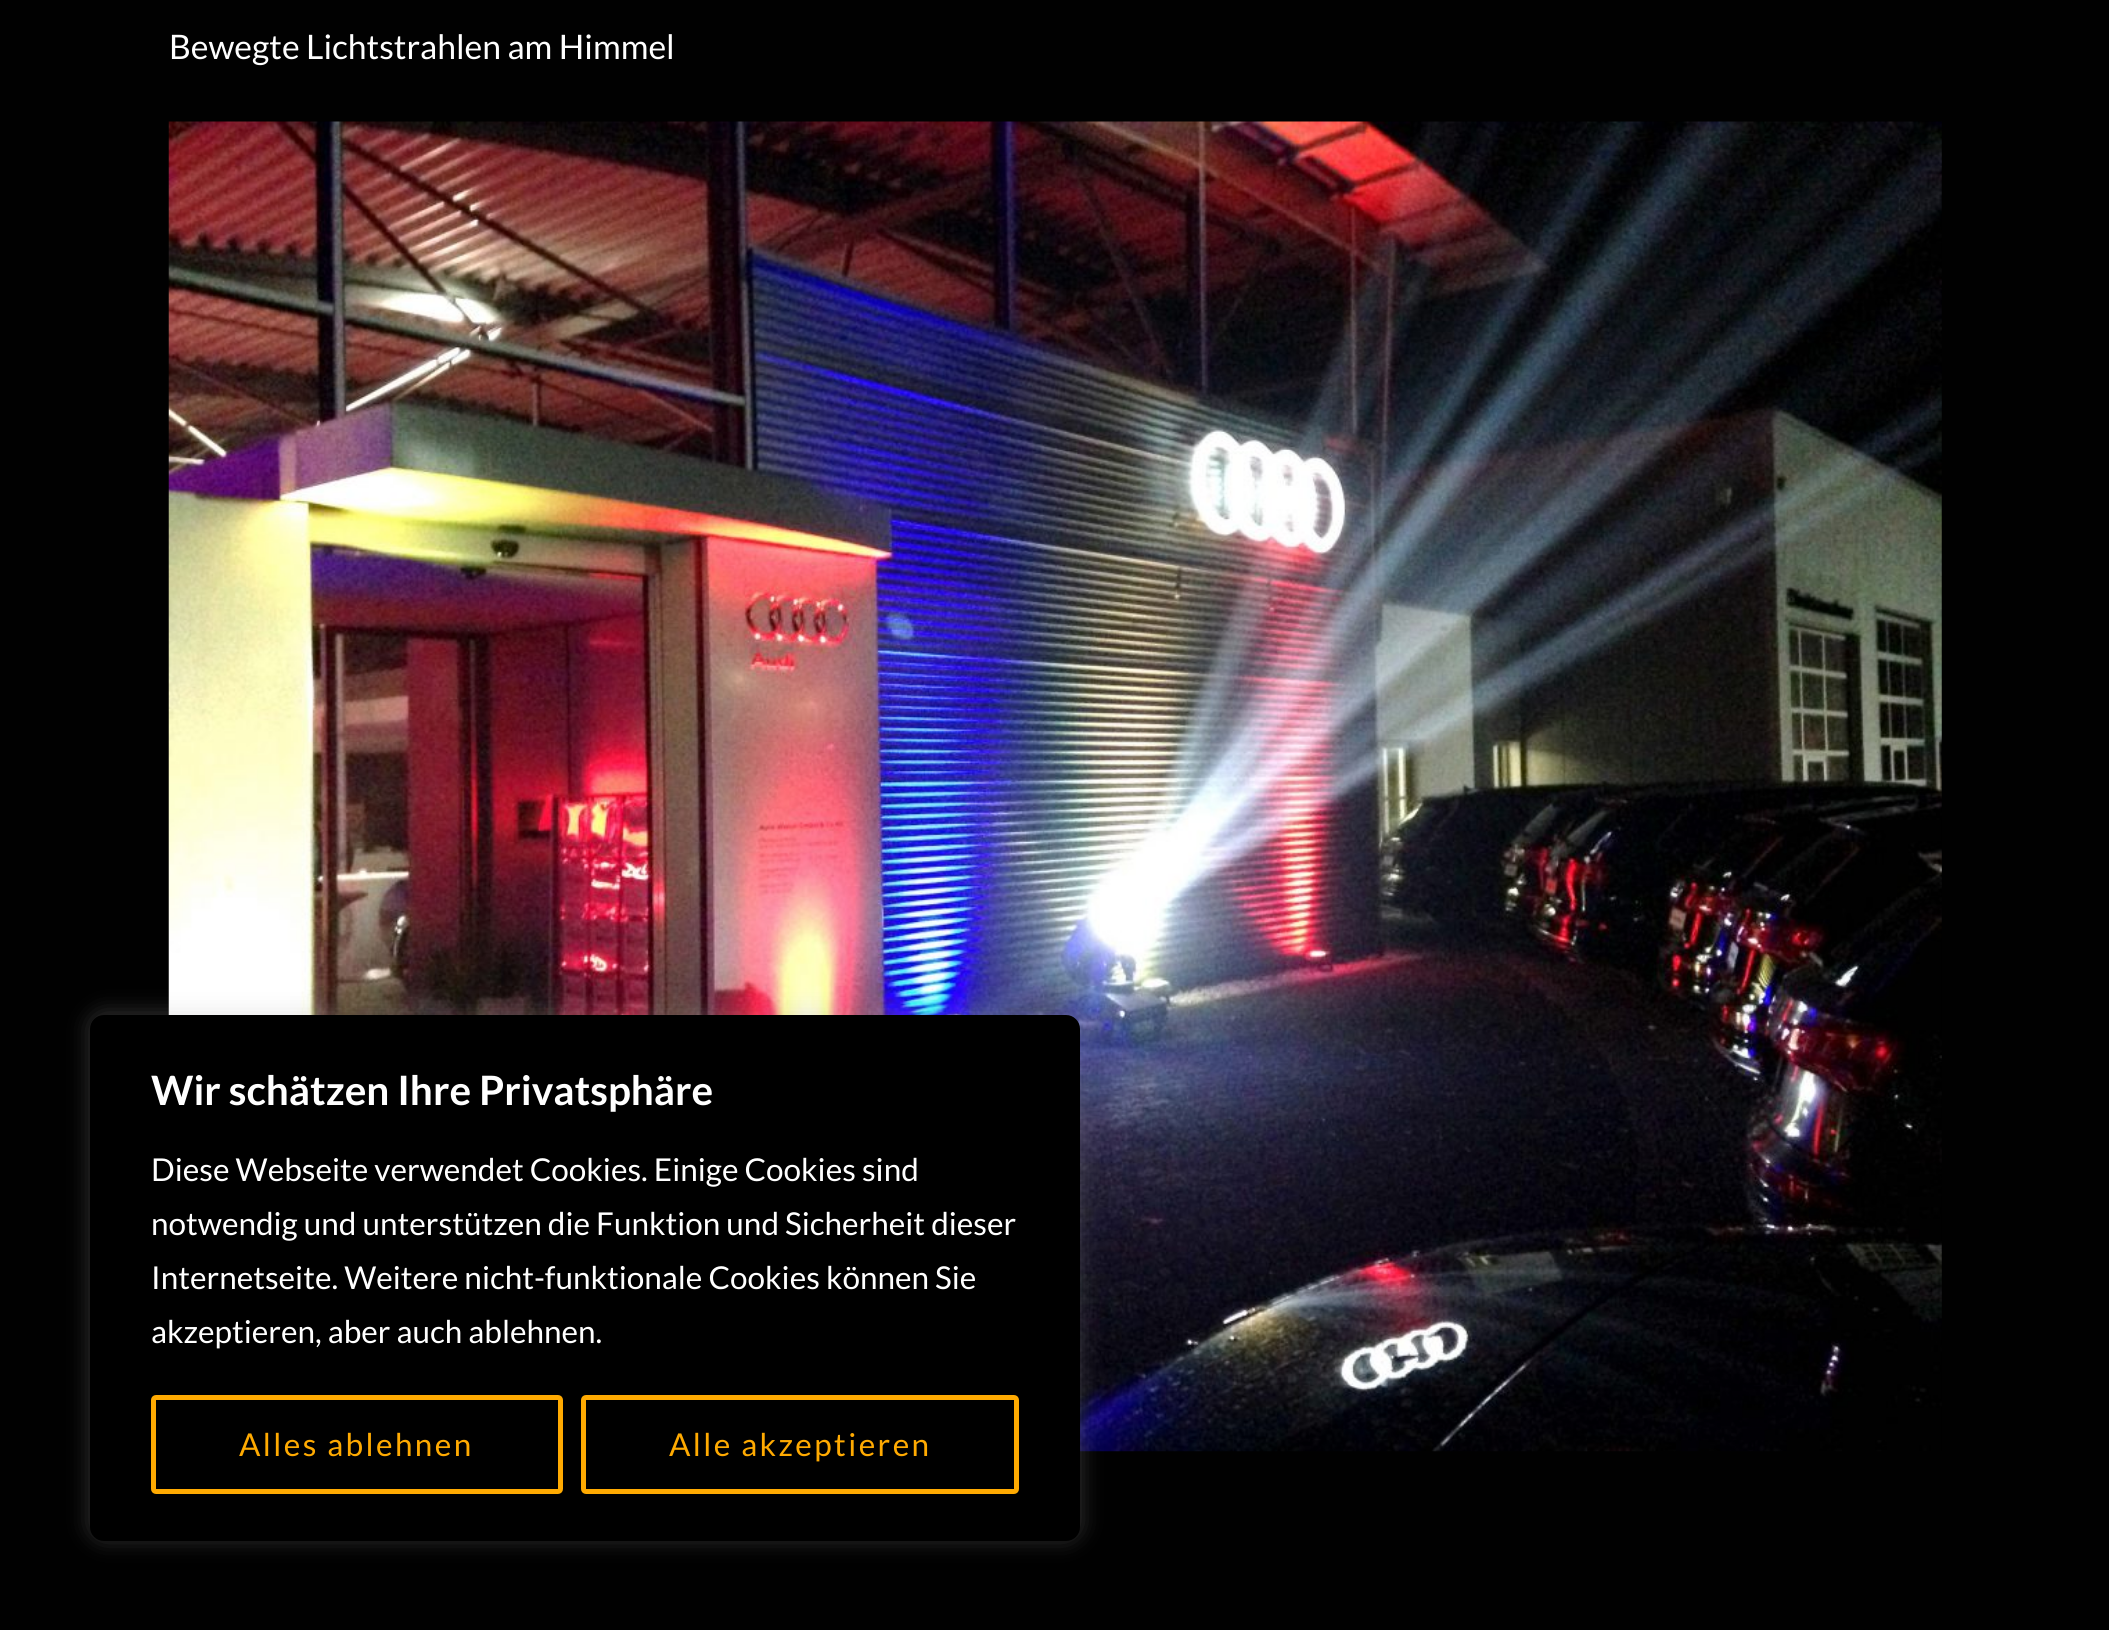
import math
import cairo



def draw_spaced(context, x, y, s, letter, word):
    context.move_to(x, y)
    for ch in s:
        context.show_text(ch)
        context.rel_move_to(letter + word * (ch == ' '), 0)


def rounded_rect(context, x, y, w, h, r):
    context.new_sub_path()
    for i, (u, v) in enumerate([(x + w - r, y + h - r), (x + r, y + h - r), (x + r, y + r), (x + w - r, y + r)]):
        context.arc(u, v, r, i * math.pi / 2, (i + 1) * math.pi / 2)
    context.close_path()


def draw_shadow(context, x, y, w, h, r, blur, alpha):
    context.push_group_with_content(cairo.Content.ALPHA)
    context.set_operator(cairo.Operator.SOURCE)
    for i in range(15, -16, -2):
        e = blur * i / 6
        if min(w, h) + 2 * e > 0:
            context.set_source_rgba(0, 0, 0, alpha * math.erfc((i - 1) / 8.5) / 2)
            rounded_rect(context, x - e, y - e, w + 2 * e, h + 2 * e, max(0, min(r + e + blur * .6, min(w, h) / 2 + e)))
            context.fill()
    context.mask(context.pop_group())


def draw_image(context, path, x, y, w, h):
    context.save()
    context.set_source_surface(cairo.ImageSurface.create_from_png(path), x, y)
    context.rectangle(x, y, w, h)
    context.fill()
    context.restore()


def draw(context):
    context.set_source_rgb(1 / 255, 1 / 255, 1 / 255)
    context.paint()
    draw_image(context, "images/1.png", 168, 121, 1774, 1331)
    context.set_source_rgb(172 / 255, 171 / 255, 171 / 255)
    draw_shadow(context, 90, 1013, 990, 526, 14, 11, 0.3)
    context.set_source_rgb(0, 0, 0)
    rounded_rect(context, 91, 1016, 988, 524, 13)
    context.fill_preserve()
    context.stroke()
    rounded_rect(context, 153.5, 1397.5, 407, 94, 2.5)
    context.set_source_rgb(1, 170 / 255, 1 / 255)
    context.set_line_width(5)
    context.stroke()
    rounded_rect(context, 583.5, 1397.5, 433, 94, 2.5)
    context.stroke()
    context.select_font_face("Lato")
    context.set_font_size(33.75)
    context.set_source_rgb(1, 1, 1)
    context.move_to(169, 59)
    context.show_text("Bewegte Lichtstrahlen am Himmel")
    context.select_font_face("Lato", cairo.FontSlant.NORMAL, cairo.FontWeight.BOLD)
    context.set_font_size(40.5)
    context.move_to(151, 1105)
    context.show_text("Wir schätzen Ihre Privatsphäre")
    context.select_font_face("Lato")
    context.set_font_size(31.5)
    context.move_to(151, 1181)
    context.show_text("Diese Webseite verwendet Cookies. Einige Cookies sind")
    context.move_to(151, 1235)
    context.show_text("notwendig und unterstützen die Funktion und Sicherheit dieser")
    context.move_to(151, 1289)
    context.show_text("Internetseite. Weitere nicht-funktionale Cookies können Sie")
    context.move_to(151, 1343)
    context.show_text("akzeptieren, aber auch ablehnen.")
    context.set_source_rgb(1, 170 / 255, 1 / 255)
    draw_spaced(context, 239, 1456, "Alles ablehnen", 2.4, 0)
    draw_spaced(context, 669, 1456, "Alle akzeptieren", 2.4, 0)


surface = cairo.ImageSurface(cairo.Format.RGB24, 2109, 1630)
context = cairo.Context(surface)
options = cairo.FontOptions()
options.set_hint_metrics(cairo.HintMetrics.OFF)
options.set_hint_style(cairo.HintStyle.NONE)
context.set_font_options(options)
context.set_miter_limit(4)
draw(context)
surface.write_to_png("out.png")
